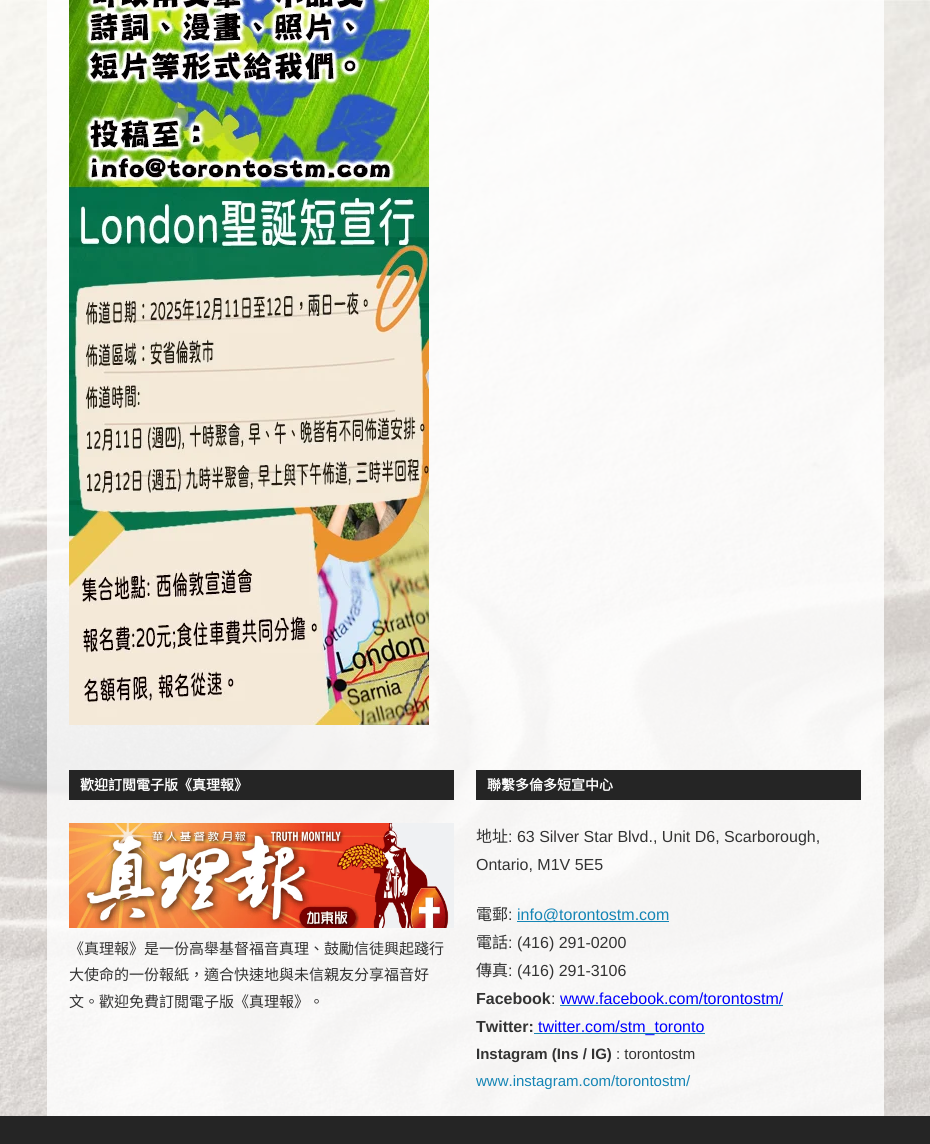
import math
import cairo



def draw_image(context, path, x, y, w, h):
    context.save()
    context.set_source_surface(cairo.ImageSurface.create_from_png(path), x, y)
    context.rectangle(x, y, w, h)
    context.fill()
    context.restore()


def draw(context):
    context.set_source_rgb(1, 1, 1)
    context.paint()
    draw_image(context, "images/1.png", 0, 0, 930, 1116)
    context.set_source_rgba(1, 1, 1, 0.8)
    context.rectangle(47, 0, 837, 1116)
    context.fill()
    draw_image(context, "images/2.png", 69, 0, 360, 725)
    context.set_source_rgb(37 / 255, 37 / 255, 37 / 255)
    context.rectangle(69, 770, 385, 30)
    context.fill()
    draw_image(context, "images/3.png", 69, 823, 385, 105)
    context.rectangle(476, 770, 385, 30)
    context.fill()
    context.set_source_rgb(21 / 255, 133 / 255, 181 / 255)
    context.rectangle(517, 921, 152, 1)
    context.fill()
    context.rectangle(560, 1005, 223, 1)
    context.fill()
    context.rectangle(534, 1033, 171, 1)
    context.fill()
    context.set_source_rgb(37 / 255, 37 / 255, 37 / 255)
    context.rectangle(0, 1116, 930, 28)
    context.fill()
    context.select_font_face("Noto Sans CJK HK", cairo.FontSlant.NORMAL, cairo.FontWeight.BOLD)
    context.set_font_size(14)
    context.set_source_rgb(1, 1, 1)
    context.move_to(80, 790)
    context.show_text("歡迎訂閲電子版《真理報》")
    context.select_font_face("Noto Sans CJK HK")
    context.set_font_size(15)
    context.set_source_rgb(51 / 255, 51 / 255, 51 / 255)
    context.move_to(69, 954)
    context.show_text("《真理報》是一份高舉基督福音真理、鼓勵信徒興起踐行")
    context.move_to(69, 980)
    context.show_text("大使命的一份報紙，適合快速地與未信親友分享福音好")
    context.move_to(69, 1007)
    context.show_text("文。歡迎免費訂閲電子版《真理報》。")
    context.select_font_face("Noto Sans CJK HK", cairo.FontSlant.NORMAL, cairo.FontWeight.BOLD)
    context.set_font_size(14)
    context.set_source_rgb(1, 1, 1)
    context.move_to(487, 790)
    context.show_text("聯繫多倫多短宣中心")
    context.select_font_face("Noto Sans CJK HK")
    context.set_font_size(16)
    context.set_source_rgb(51 / 255, 51 / 255, 51 / 255)
    context.move_to(476, 842)
    context.show_text("地址")
    context.select_font_face("Liberation Sans")
    context.move_to(508, 842)
    context.show_text(": 63 Silver Star Blvd., Unit D6, Scarborough,")
    context.move_to(476, 870)
    context.show_text("Ontario, M1V 5E5")
    context.select_font_face("Noto Sans CJK HK")
    context.move_to(476, 920)
    context.show_text("電郵")
    context.select_font_face("Liberation Sans")
    context.move_to(508, 920)
    context.show_text(":")
    context.set_source_rgb(21 / 255, 133 / 255, 181 / 255)
    context.move_to(517, 920)
    context.show_text("info@torontostm.com")
    context.select_font_face("Noto Sans CJK HK")
    context.set_source_rgb(51 / 255, 51 / 255, 51 / 255)
    context.move_to(476, 948)
    context.show_text("電話")
    context.select_font_face("Liberation Sans")
    context.move_to(508, 948)
    context.show_text(": (416) 291-0200")
    context.select_font_face("Noto Sans CJK HK")
    context.move_to(476, 976)
    context.show_text("傳真")
    context.select_font_face("Liberation Sans")
    context.move_to(508, 976)
    context.show_text(": (416) 291-3106")
    context.select_font_face("Liberation Sans", cairo.FontSlant.NORMAL, cairo.FontWeight.BOLD)
    context.move_to(476, 1004)
    context.show_text("Facebook")
    context.select_font_face("Liberation Sans")
    context.move_to(551, 1004)
    context.show_text(":")
    context.set_source_rgb(0, 0, 1)
    context.move_to(560, 1004)
    context.show_text("www.facebook.com/torontostm/")
    context.select_font_face("Liberation Sans", cairo.FontSlant.NORMAL, cairo.FontWeight.BOLD)
    context.set_source_rgb(51 / 255, 51 / 255, 51 / 255)
    context.move_to(476, 1032)
    context.show_text("Twitter:")
    context.select_font_face("Liberation Sans")
    context.set_source_rgb(0, 0, 1)
    context.move_to(538, 1032)
    context.show_text("twitter.com/stm_toronto")
    context.select_font_face("Liberation Sans", cairo.FontSlant.NORMAL, cairo.FontWeight.BOLD)
    context.set_font_size(15)
    context.set_source_rgb(51 / 255, 51 / 255, 51 / 255)
    context.move_to(476, 1059)
    context.show_text("Instagram (Ins / IG)")
    context.select_font_face("Liberation Sans")
    context.move_to(616, 1059)
    context.show_text(": torontostm")
    context.set_source_rgb(21 / 255, 133 / 255, 181 / 255)
    context.move_to(476, 1086)
    context.show_text("www.instagram.com/torontostm/")


surface = cairo.ImageSurface(cairo.Format.RGB24, 930, 1144)
context = cairo.Context(surface)
options = cairo.FontOptions()
options.set_hint_metrics(cairo.HintMetrics.OFF)
options.set_hint_style(cairo.HintStyle.NONE)
context.set_font_options(options)
context.set_miter_limit(4)
draw(context)
surface.write_to_png("out.png")
